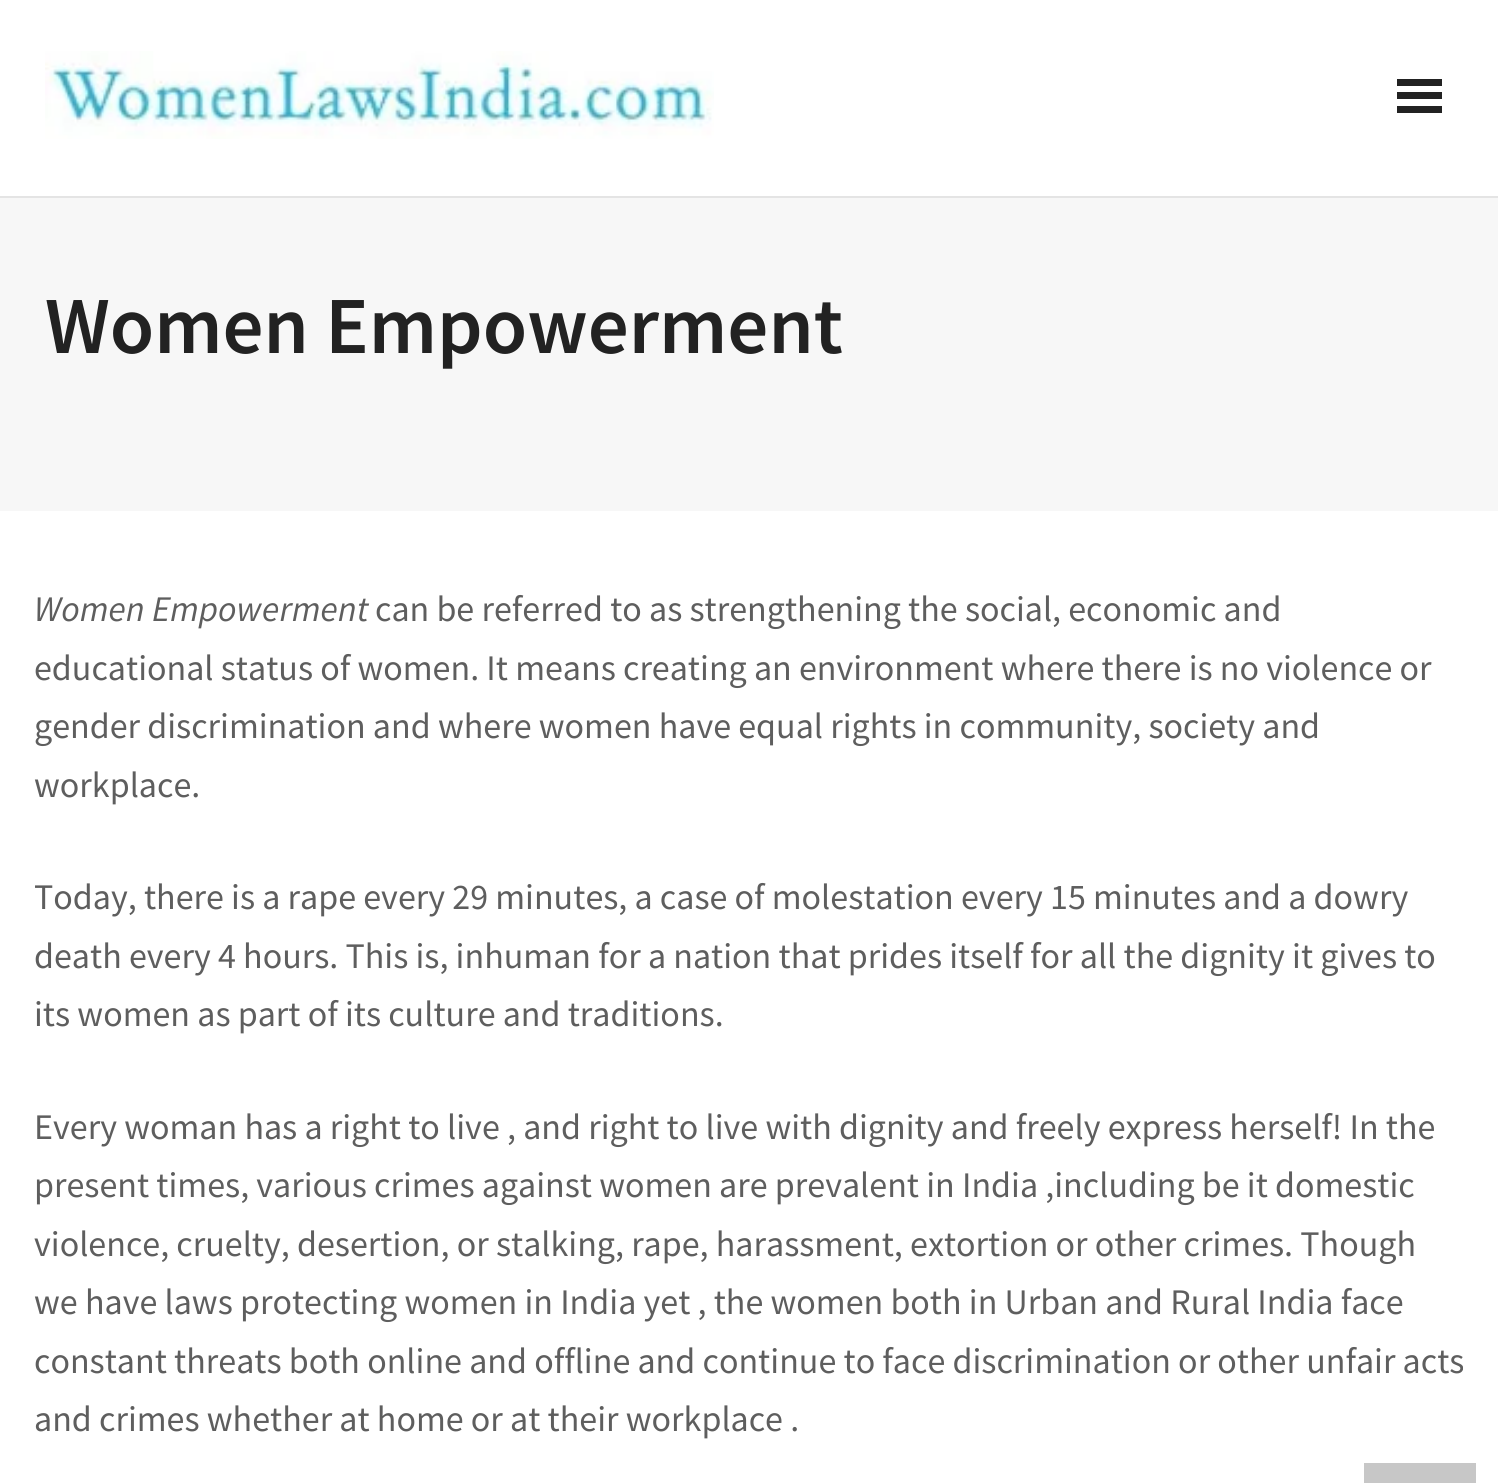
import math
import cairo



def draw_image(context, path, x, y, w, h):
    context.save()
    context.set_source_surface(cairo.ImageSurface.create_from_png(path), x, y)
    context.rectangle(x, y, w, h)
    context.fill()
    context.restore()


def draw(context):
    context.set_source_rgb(1, 1, 1)
    context.paint()
    context.set_source_rgb(228 / 255, 228 / 255, 228 / 255)
    context.rectangle(0, 196, 1498, 2)
    context.fill()
    draw_image(context, "images/1.png", 45, 51, 669, 88)
    context.set_source_rgb(34 / 255, 34 / 255, 34 / 255)
    context.rectangle(1397, 92, 45, 7)
    context.fill()
    context.rectangle(1397, 79, 45, 7)
    context.fill()
    context.rectangle(1397, 106, 45, 7)
    context.fill()
    context.set_source_rgb(247 / 255, 247 / 255, 247 / 255)
    context.rectangle(0, 198, 1498, 313)
    context.fill()
    context.set_source_rgb(199 / 255, 199 / 255, 199 / 255)
    context.rectangle(1364, 1463, 112, 20)
    context.fill()
    context.select_font_face("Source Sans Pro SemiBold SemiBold")
    context.set_font_size(81)
    context.set_source_rgb(34 / 255, 34 / 255, 34 / 255)
    context.move_to(45, 353)
    context.show_text("Women Empowerment")
    context.select_font_face("Source Sans Pro", cairo.FontSlant.ITALIC)
    context.set_font_size(36)
    context.set_source_rgb(94 / 255, 94 / 255, 94 / 255)
    context.move_to(34, 621)
    context.show_text("Women Empowerment")
    context.select_font_face("Source Sans Pro")
    context.move_to(375, 621)
    context.show_text("can be referred to as strengthening the social, economic and")
    context.move_to(34, 680)
    context.show_text("educational status of women. It means creating an environment where there is no violence or")
    context.move_to(34, 738)
    context.show_text("gender discrimination and where women have equal rights in community, society and")
    context.move_to(34, 797)
    context.show_text("workplace.")
    context.move_to(34, 909)
    context.show_text("Today, there is a rape every 29 minutes, a case of molestation every 15 minutes and a dowry")
    context.move_to(34, 968)
    context.show_text("death every 4 hours. This is, inhuman for a nation that prides itself for all the dignity it gives to")
    context.move_to(34, 1026)
    context.show_text("its women as part of its culture and traditions.")
    context.move_to(34, 1139)
    context.show_text("Every woman has a right to live , and right to live with dignity and freely express herself! In the")
    context.move_to(34, 1197)
    context.show_text("present times, various crimes against women are prevalent in India ,including be it domestic")
    context.move_to(34, 1256)
    context.show_text("violence, cruelty, desertion, or stalking, rape, harassment, extortion or other crimes. Though")
    context.move_to(34, 1314)
    context.show_text("we have laws protecting women in India yet , the women both in Urban and Rural India face")
    context.move_to(34, 1373)
    context.show_text("constant threats both online and offline and continue to face discrimination or other unfair acts")
    context.move_to(34, 1431)
    context.show_text("and crimes whether at home or at their workplace .")


surface = cairo.ImageSurface(cairo.Format.RGB24, 1498, 1483)
context = cairo.Context(surface)
options = cairo.FontOptions()
options.set_hint_metrics(cairo.HintMetrics.OFF)
options.set_hint_style(cairo.HintStyle.NONE)
context.set_font_options(options)
context.set_miter_limit(4)
draw(context)
surface.write_to_png("out.png")
